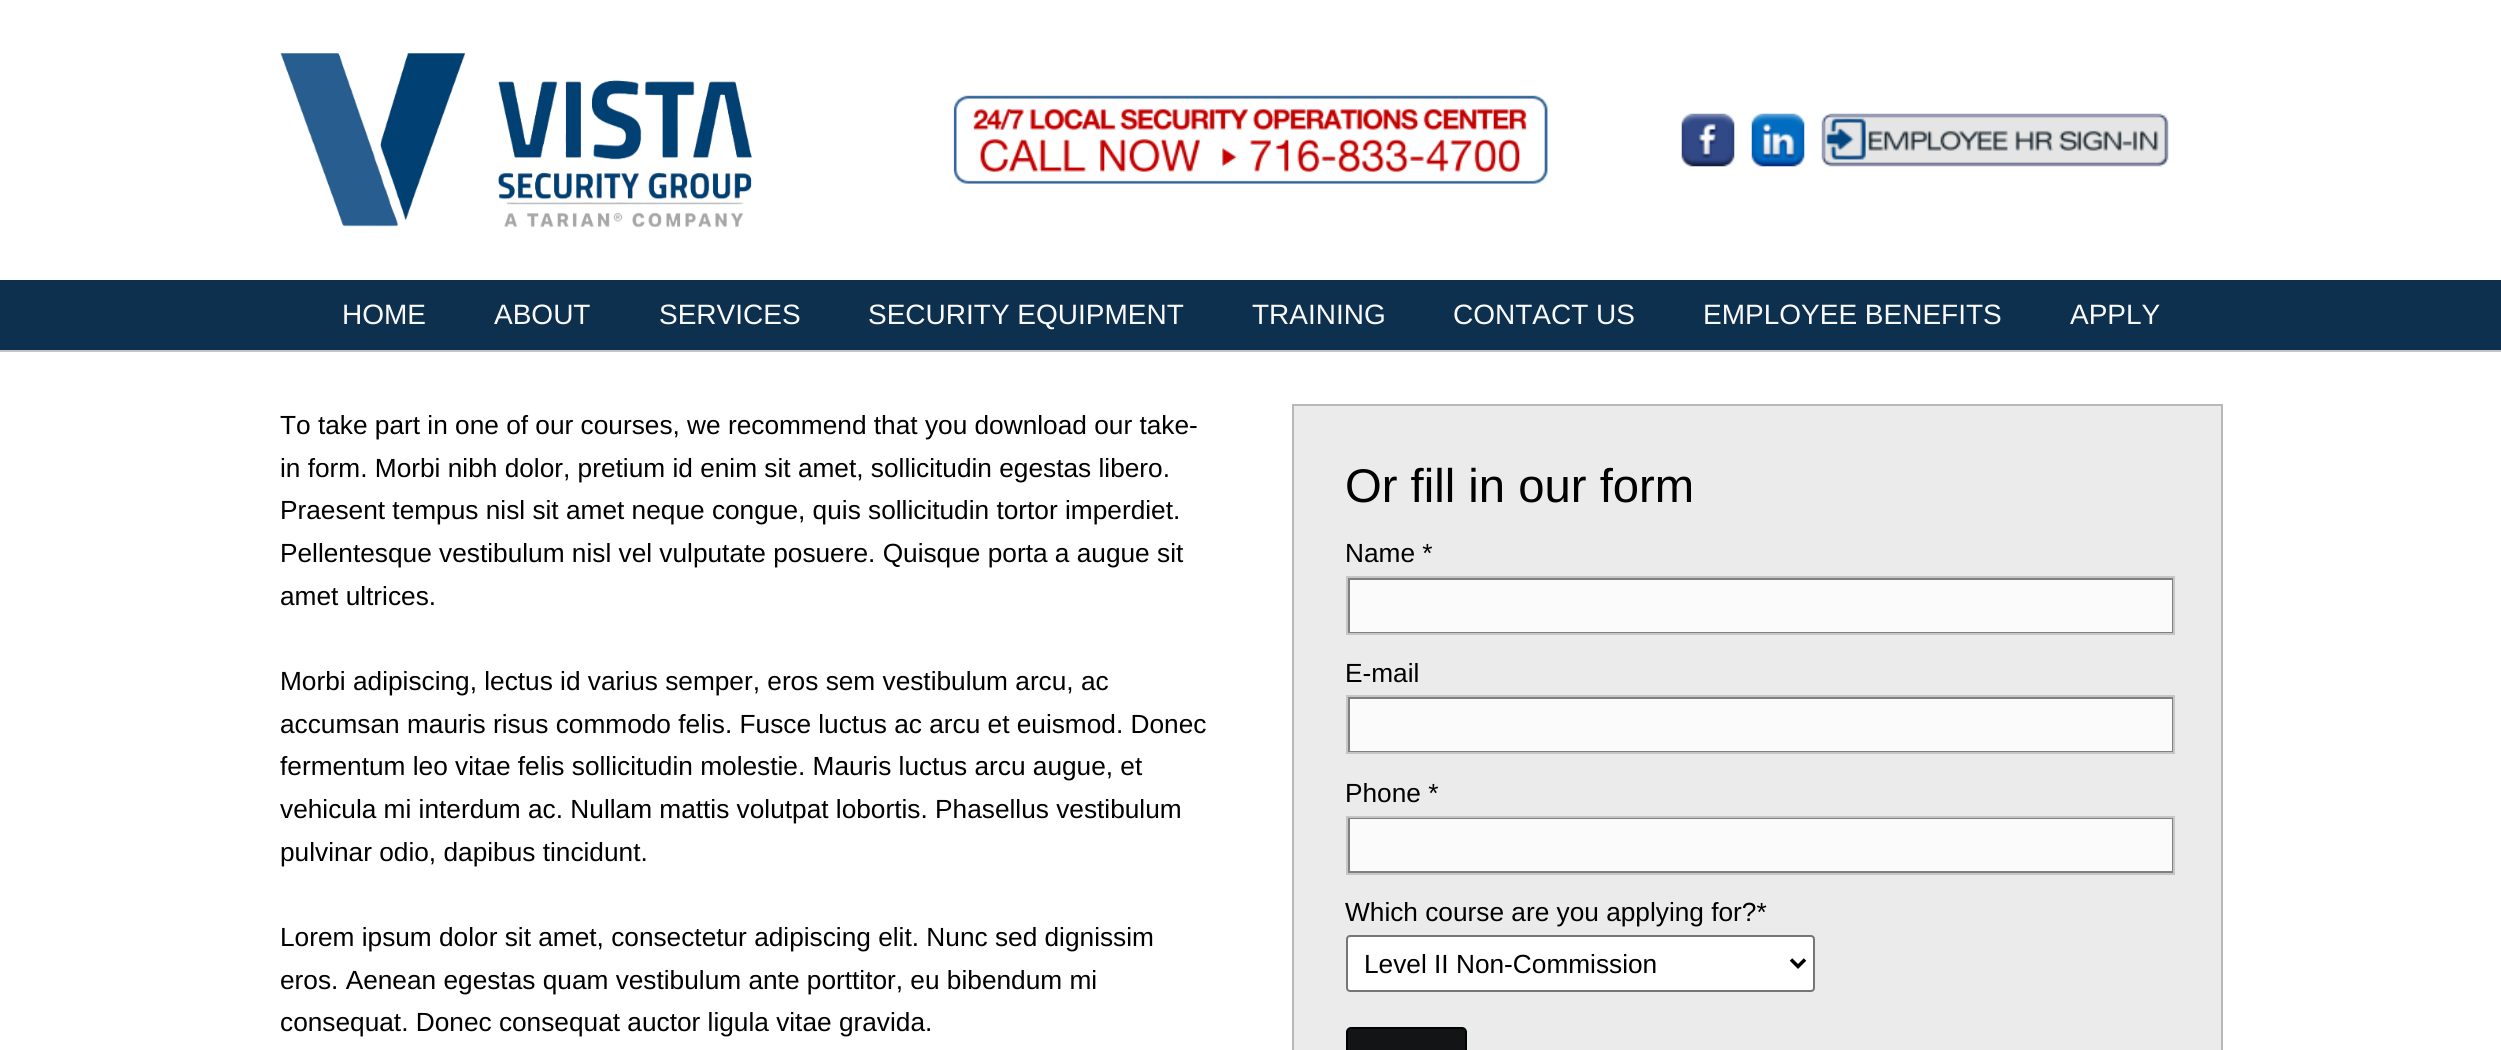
import math
import cairo



def rounded_rect(context, x, y, w, h, r):
    context.new_sub_path()
    for i, (u, v) in enumerate([(x + w - r, y + h - r), (x + r, y + h - r), (x + r, y + r), (x + w - r, y + r)]):
        context.arc(u, v, r, i * math.pi / 2, (i + 1) * math.pi / 2)
    context.close_path()


def draw_image(context, path, x, y, w, h):
    context.save()
    context.set_source_surface(cairo.ImageSurface.create_from_png(path), x, y)
    context.rectangle(x, y, w, h)
    context.fill()
    context.restore()


def draw(context):
    context.set_source_rgb(1, 1, 1)
    context.paint()
    context.set_source_rgb(14 / 255, 48 / 255, 79 / 255)
    context.rectangle(0, 280, 2501, 70)
    context.fill()
    draw_image(context, "images/1.png", 280, 53, 472, 175)
    draw_image(context, "images/2.png", 953, 95, 595, 89)
    draw_image(context, "images/3.png", 1681, 113, 54, 54)
    draw_image(context, "images/4.png", 1751, 113, 54, 54)
    draw_image(context, "images/5.png", 1821, 113, 348, 54)
    context.set_source_rgb(198 / 255, 198 / 255, 198 / 255)
    context.rectangle(0, 350, 2501, 2)
    context.fill()
    context.set_source_rgb(235 / 255, 235 / 255, 235 / 255)
    context.rectangle(1293, 405, 929, 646)
    context.fill_preserve()
    context.set_source_rgb(184 / 255, 184 / 255, 184 / 255)
    context.stroke()
    context.set_source_rgb(251 / 255, 251 / 255, 251 / 255)
    context.rectangle(1349, 579, 824, 54)
    context.fill_preserve()
    context.set_source_rgb(128 / 255, 128 / 255, 128 / 255)
    context.stroke()
    context.rectangle(1347, 577, 827, 57)
    context.set_source_rgb(198 / 255, 198 / 255, 198 / 255)
    context.stroke()
    context.set_source_rgb(251 / 255, 251 / 255, 251 / 255)
    context.rectangle(1349, 698, 824, 54)
    context.fill_preserve()
    context.set_source_rgb(128 / 255, 128 / 255, 128 / 255)
    context.stroke()
    context.rectangle(1347, 696, 827, 57)
    context.set_source_rgb(198 / 255, 198 / 255, 198 / 255)
    context.stroke()
    context.set_source_rgb(251 / 255, 251 / 255, 251 / 255)
    context.rectangle(1349, 818, 824, 54)
    context.fill_preserve()
    context.set_source_rgb(128 / 255, 128 / 255, 128 / 255)
    context.stroke()
    context.rectangle(1347, 817, 827, 57)
    context.set_source_rgb(198 / 255, 198 / 255, 198 / 255)
    context.stroke()
    context.set_source_rgb(1, 1, 1)
    rounded_rect(context, 1347, 936, 467, 55, 3)
    context.fill_preserve()
    context.set_source_rgb(118 / 255, 118 / 255, 118 / 255)
    context.stroke()
    context.new_path()
    context.move_to(1791, 959.5)
    context.line_to(1798, 966.5)
    context.line_to(1805, 959.5)
    context.set_source_rgb(0, 0, 0)
    context.set_line_width(3.5)
    context.stroke()
    context.set_source_rgb(19 / 255, 20 / 255, 22 / 255)
    rounded_rect(context, 1347, 1028, 119, 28, 4)
    context.fill_preserve()
    context.set_source_rgb(0, 0, 0)
    context.set_line_width(2)
    context.stroke()
    context.select_font_face("Liberation Sans")
    context.set_font_size(28)
    context.set_source_rgb(249 / 255, 249 / 255, 249 / 255)
    context.move_to(342, 324)
    context.show_text("HOME")
    context.move_to(494, 324)
    context.show_text("ABOUT")
    context.move_to(659, 324)
    context.show_text("SERVICES")
    context.move_to(868, 324)
    context.show_text("SECURITY EQUIPMENT")
    context.move_to(1252, 324)
    context.show_text("TRAINING")
    context.move_to(1453, 324)
    context.show_text("CONTACT US")
    context.move_to(1703, 324)
    context.show_text("EMPLOYEE BENEFITS")
    context.move_to(2070, 324)
    context.show_text("APPLY")
    context.set_font_size(26.25)
    context.set_source_rgb(0, 0, 0)
    context.move_to(280, 434)
    context.show_text("To take part in one of our courses, we recommend that you download our take-")
    context.move_to(280, 477)
    context.show_text("in form. Morbi nibh dolor, pretium id enim sit amet, sollicitudin egestas libero.")
    context.move_to(280, 519)
    context.show_text("Praesent tempus nisl sit amet neque congue, quis sollicitudin tortor imperdiet.")
    context.move_to(280, 562)
    context.show_text("Pellentesque vestibulum nisl vel vulputate posuere. Quisque porta a augue sit")
    context.move_to(280, 605)
    context.show_text("amet ultrices.")
    context.move_to(280, 690)
    context.show_text("Morbi adipiscing, lectus id varius semper, eros sem vestibulum arcu, ac")
    context.move_to(280, 733)
    context.show_text("accumsan mauris risus commodo felis. Fusce luctus ac arcu et euismod. Donec")
    context.move_to(280, 775)
    context.show_text("fermentum leo vitae felis sollicitudin molestie. Mauris luctus arcu augue, et")
    context.move_to(280, 818)
    context.show_text("vehicula mi interdum ac. Nullam mattis volutpat lobortis. Phasellus vestibulum")
    context.move_to(280, 861)
    context.show_text("pulvinar odio, dapibus tincidunt.")
    context.move_to(280, 946)
    context.show_text("Lorem ipsum dolor sit amet, consectetur adipiscing elit. Nunc sed dignissim")
    context.move_to(280, 989)
    context.show_text("eros. Aenean egestas quam vestibulum ante porttitor, eu bibendum mi")
    context.move_to(280, 1031)
    context.show_text("consequat. Donec consequat auctor ligula vitae gravida.")
    context.set_font_size(47.25)
    context.move_to(1345, 502)
    context.show_text("Or fill in our form")
    context.set_font_size(26.25)
    context.move_to(1345, 562)
    context.show_text("Name *")
    context.move_to(1345, 682)
    context.show_text("E-mail")
    context.move_to(1345, 802)
    context.show_text("Phone *")
    context.move_to(1345, 921)
    context.show_text("Which course are you applying for?*")
    context.move_to(1364, 973)
    context.show_text("Level II Non-Commission")


surface = cairo.ImageSurface(cairo.Format.RGB24, 2501, 1050)
context = cairo.Context(surface)
options = cairo.FontOptions()
options.set_hint_metrics(cairo.HintMetrics.OFF)
options.set_hint_style(cairo.HintStyle.NONE)
context.set_font_options(options)
context.set_miter_limit(4)
draw(context)
surface.write_to_png("out.png")
